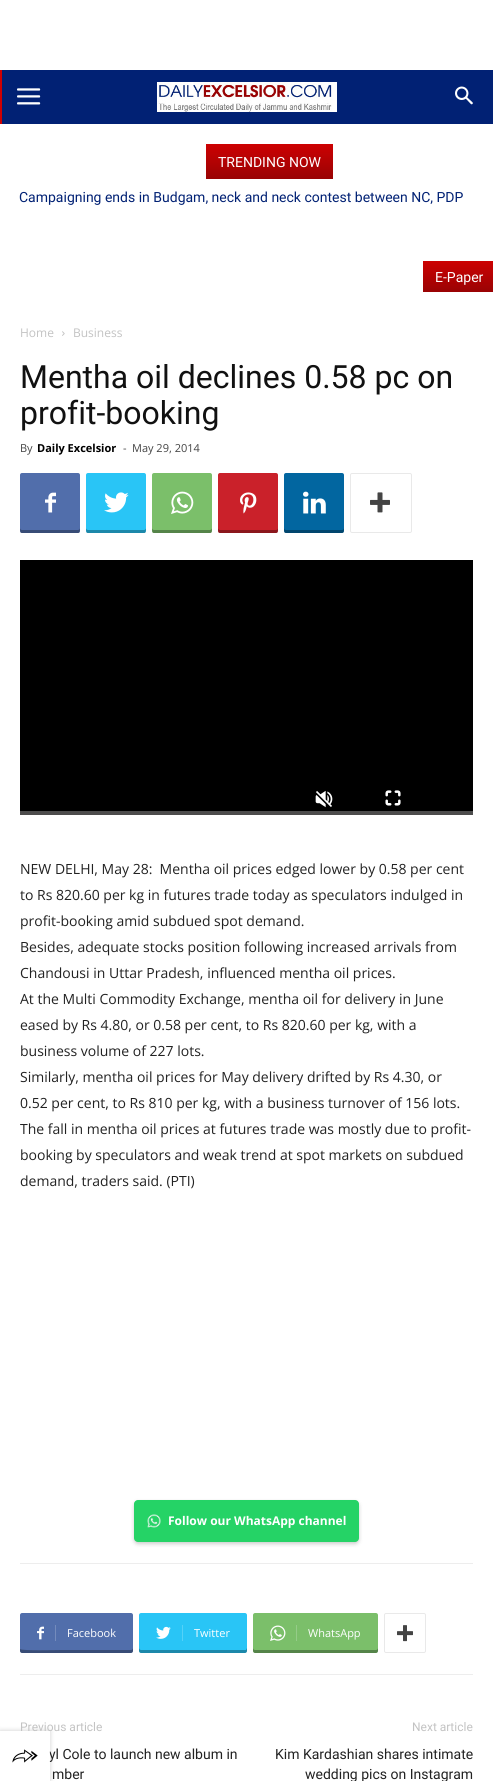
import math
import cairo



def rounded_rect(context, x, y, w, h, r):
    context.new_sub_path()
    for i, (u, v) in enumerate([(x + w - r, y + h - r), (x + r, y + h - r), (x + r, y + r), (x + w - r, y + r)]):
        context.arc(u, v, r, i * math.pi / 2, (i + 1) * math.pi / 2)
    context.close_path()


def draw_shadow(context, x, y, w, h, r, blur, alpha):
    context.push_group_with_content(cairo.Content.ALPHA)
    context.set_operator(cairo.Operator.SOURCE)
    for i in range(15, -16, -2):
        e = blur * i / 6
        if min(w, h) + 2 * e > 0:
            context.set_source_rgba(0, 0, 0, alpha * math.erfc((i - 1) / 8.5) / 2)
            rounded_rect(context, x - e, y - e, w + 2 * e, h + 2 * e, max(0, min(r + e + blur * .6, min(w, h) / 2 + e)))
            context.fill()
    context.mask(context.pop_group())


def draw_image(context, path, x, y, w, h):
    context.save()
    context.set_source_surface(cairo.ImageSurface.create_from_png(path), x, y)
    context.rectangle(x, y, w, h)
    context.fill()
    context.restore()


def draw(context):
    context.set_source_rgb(1, 1, 1)
    context.paint()
    context.set_source_rgb(206 / 255, 0, 2 / 255)
    context.rectangle(0, 70, 2, 54)
    context.fill()
    context.set_source_rgb(1 / 255, 33 / 255, 116 / 255)
    context.rectangle(2, 70, 491, 54)
    context.fill()
    draw_image(context, "images/1.png", 17, 88, 24, 17)
    draw_image(context, "images/2.png", 157, 82, 180, 30)
    draw_image(context, "images/3.png", 455, 86, 18, 19)
    gradient = cairo.LinearGradient(270, 144, 270, 179)
    gradient.add_color_stop_rgba(0, 205 / 255, 1 / 255, 2 / 255, 1)
    gradient.add_color_stop_rgba(1, 153 / 255, 3 / 255, 4 / 255, 1)
    context.set_source(gradient)
    context.rectangle(206, 144, 127, 35)
    context.fill()
    gradient = cairo.LinearGradient(460, 261, 460, 292)
    gradient.add_color_stop_rgba(0, 205 / 255, 1 / 255, 2 / 255, 1)
    gradient.add_color_stop_rgba(1, 153 / 255, 3 / 255, 4 / 255, 1)
    context.set_source(gradient)
    context.rectangle(423, 261, 70, 31)
    context.fill()
    draw_image(context, "images/4.png", 62, 331, 3, 5)
    context.set_source_rgb(81 / 255, 110 / 255, 171 / 255)
    rounded_rect(context, 20, 473, 60, 60, 2)
    context.fill()
    context.save()
    context.rectangle(20, 473, 60, 60)
    context.clip()
    context.set_source_rgba(0, 0, 0, 0.31)
    context.new_path()
    context.move_to(20, 528)
    context.curve_to(20, 536, 22, 533, 31, 533)
    context.line_to(69, 533)
    context.curve_to(78, 533, 80, 536, 80, 528)
    context.curve_to(80, 529, 79, 530, 78, 530)
    context.line_to(22, 530)
    context.curve_to(21, 530, 20, 529, 20, 528)
    context.close_path()
    context.fill()
    context.restore()
    draw_image(context, "images/5.png", 45, 492, 11, 21)
    context.set_source_rgb(41 / 255, 197 / 255, 246 / 255)
    rounded_rect(context, 86, 473, 60, 60, 2)
    context.fill()
    context.save()
    context.rectangle(86, 473, 60, 60)
    context.clip()
    context.set_source_rgba(0, 0, 0, 0.31)
    context.new_path()
    context.move_to(86, 528)
    context.curve_to(86, 536, 88, 533, 97, 533)
    context.line_to(135, 533)
    context.curve_to(144, 533, 146, 536, 146, 528)
    context.curve_to(146, 529, 145, 530, 144, 530)
    context.line_to(88, 530)
    context.curve_to(87, 530, 86, 529, 86, 528)
    context.close_path()
    context.fill()
    context.restore()
    draw_image(context, "images/6.png", 104, 492, 25, 21)
    context.set_source_rgb(123 / 255, 191 / 255, 106 / 255)
    rounded_rect(context, 152, 473, 60, 60, 2)
    context.fill()
    context.save()
    context.rectangle(152, 473, 60, 60)
    context.clip()
    context.set_source_rgba(0, 0, 0, 0.31)
    context.new_path()
    context.move_to(152, 528)
    context.curve_to(152, 536, 154, 533, 163, 533)
    context.line_to(201, 533)
    context.curve_to(210, 533, 212, 536, 212, 528)
    context.curve_to(212, 529, 211, 530, 210, 530)
    context.line_to(154, 530)
    context.curve_to(153, 530, 152, 529, 152, 528)
    context.close_path()
    context.fill()
    context.restore()
    draw_image(context, "images/7.png", 171, 491, 23, 23)
    context.set_source_rgb(202 / 255, 33 / 255, 42 / 255)
    rounded_rect(context, 218, 473, 60, 60, 2)
    context.fill()
    context.save()
    context.rectangle(218, 473, 60, 60)
    context.clip()
    context.set_source_rgba(0, 0, 0, 0.31)
    context.new_path()
    context.move_to(218, 528)
    context.curve_to(218, 536, 220, 533, 229, 533)
    context.line_to(267, 533)
    context.curve_to(276, 533, 278, 536, 278, 528)
    context.curve_to(278, 529, 277, 530, 276, 530)
    context.line_to(220, 530)
    context.curve_to(219, 530, 218, 529, 218, 528)
    context.close_path()
    context.fill()
    context.restore()
    draw_image(context, "images/8.png", 240, 492, 17, 22)
    context.set_source_rgb(2 / 255, 102 / 255, 160 / 255)
    rounded_rect(context, 284, 473, 60, 60, 2)
    context.fill()
    context.save()
    context.rectangle(284, 473, 60, 60)
    context.clip()
    context.set_source_rgba(0, 0, 0, 0.31)
    context.new_path()
    context.move_to(284, 528)
    context.curve_to(284, 536, 286, 533, 295, 533)
    context.line_to(333, 533)
    context.curve_to(342, 533, 344, 536, 344, 528)
    context.curve_to(344, 529, 343, 530, 342, 530)
    context.line_to(286, 530)
    context.curve_to(285, 530, 284, 529, 284, 528)
    context.close_path()
    context.fill()
    context.restore()
    draw_image(context, "images/9.png", 303, 491, 23, 23)
    rounded_rect(context, 350.5, 473.5, 61, 59, 1.5)
    context.set_source_rgb(233 / 255, 233 / 255, 233 / 255)
    context.set_line_width(1)
    context.stroke()
    draw_image(context, "images/10.png", 370, 492, 20, 21)
    context.set_source_rgb(0, 0, 0)
    context.rectangle(20, 560, 453, 251)
    context.fill()
    draw_image(context, "images/11.png", 315, 790, 18, 18)
    draw_image(context, "images/12.png", 385, 790, 16, 16)
    context.set_source_rgb(77 / 255, 76 / 255, 76 / 255)
    context.rectangle(20, 811, 453, 4)
    context.fill()
    context.set_source_rgb(0, 0, 0)
    draw_shadow(context, 134, 1502, 225, 42, 4, 2, 0.2)
    context.set_source_rgb(37 / 255, 211 / 255, 102 / 255)
    rounded_rect(context, 134, 1500, 225, 42, 4)
    context.fill()
    draw_image(context, "images/13.png", 147, 1514, 14, 14)
    context.set_source_rgb(237 / 255, 237 / 255, 237 / 255)
    context.rectangle(20, 1563, 453, 1)
    context.fill()
    context.rectangle(20, 1674, 453, 1)
    context.fill()
    context.set_source_rgb(81 / 255, 110 / 255, 171 / 255)
    context.new_path()
    context.move_to(55, 1613)
    context.line_to(131, 1613)
    context.curve_to(132, 1613, 133, 1614, 133, 1615)
    context.line_to(133, 1651)
    context.curve_to(133, 1652, 132, 1653, 131, 1653)
    context.line_to(55, 1653)
    context.close_path()
    context.fill()
    context.set_source_rgba(0, 0, 0, 0.31)
    context.new_path()
    context.move_to(55, 1650)
    context.line_to(55, 1653)
    context.line_to(131, 1653)
    context.curve_to(132, 1653, 133, 1652, 133, 1651)
    context.line_to(133, 1648)
    context.curve_to(133, 1649, 132, 1650, 131, 1650)
    context.close_path()
    context.fill()
    context.set_source_rgb(81 / 255, 110 / 255, 171 / 255)
    context.new_path()
    context.move_to(22, 1613)
    context.line_to(61, 1613)
    context.line_to(61, 1653)
    context.line_to(22, 1653)
    context.curve_to(21, 1653, 20, 1652, 20, 1651)
    context.line_to(20, 1615)
    context.curve_to(20, 1614, 21, 1613, 22, 1613)
    context.close_path()
    context.fill()
    context.set_source_rgba(0, 0, 0, 0.31)
    context.new_path()
    context.move_to(20, 1649)
    context.line_to(20, 1651)
    context.curve_to(20, 1652, 21, 1653, 22, 1653)
    context.line_to(61, 1653)
    context.line_to(61, 1650)
    context.curve_to(57, 1650, 22, 1651, 20, 1649)
    context.close_path()
    context.fill()
    draw_image(context, "images/14.png", 37, 1626, 7, 14)
    context.set_source_rgb(116 / 255, 139 / 255, 188 / 255)
    context.rectangle(55, 1625, 1, 16)
    context.fill()
    context.set_source_rgb(41 / 255, 197 / 255, 246 / 255)
    context.new_path()
    context.move_to(182, 1613)
    context.line_to(245, 1613)
    context.curve_to(246, 1613, 247, 1614, 247, 1615)
    context.line_to(247, 1651)
    context.curve_to(247, 1652, 246, 1653, 245, 1653)
    context.line_to(182, 1653)
    context.close_path()
    context.fill()
    context.set_source_rgba(0, 0, 0, 0.31)
    context.new_path()
    context.move_to(182, 1650)
    context.line_to(182, 1653)
    context.line_to(245, 1653)
    context.curve_to(246, 1653, 247, 1652, 247, 1651)
    context.line_to(247, 1648)
    context.line_to(246, 1650)
    context.close_path()
    context.fill()
    context.set_source_rgb(41 / 255, 197 / 255, 246 / 255)
    context.new_path()
    context.move_to(141, 1613)
    context.line_to(188, 1613)
    context.line_to(188, 1653)
    context.line_to(141, 1653)
    context.curve_to(140, 1653, 139, 1652, 139, 1651)
    context.line_to(139, 1615)
    context.curve_to(139, 1614, 140, 1613, 141, 1613)
    context.close_path()
    context.fill()
    context.set_source_rgba(0, 0, 0, 0.31)
    context.new_path()
    context.move_to(139, 1648)
    context.line_to(139, 1651)
    context.curve_to(139, 1652, 140, 1653, 141, 1653)
    context.line_to(188, 1653)
    context.line_to(188, 1650)
    context.line_to(141, 1650)
    context.curve_to(140, 1650, 139, 1649, 139, 1648)
    context.close_path()
    context.fill()
    draw_image(context, "images/15.png", 156, 1626, 15, 13)
    context.set_source_rgb(84 / 255, 209 / 255, 248 / 255)
    context.rectangle(182, 1625, 1, 16)
    context.fill()
    context.set_source_rgb(123 / 255, 191 / 255, 106 / 255)
    context.new_path()
    context.move_to(296, 1613)
    context.line_to(376, 1613)
    context.curve_to(377, 1613, 378, 1614, 378, 1615)
    context.line_to(378, 1651)
    context.curve_to(378, 1652, 377, 1653, 376, 1653)
    context.line_to(296, 1653)
    context.close_path()
    context.fill()
    context.set_source_rgba(0, 0, 0, 0.31)
    context.new_path()
    context.move_to(296, 1650)
    context.line_to(296, 1653)
    context.line_to(376, 1653)
    context.curve_to(377, 1653, 378, 1652, 378, 1651)
    context.line_to(378, 1648)
    context.curve_to(378, 1649, 377, 1650, 376, 1650)
    context.close_path()
    context.fill()
    context.set_source_rgb(123 / 255, 191 / 255, 106 / 255)
    context.new_path()
    context.move_to(255, 1613)
    context.line_to(302, 1613)
    context.line_to(302, 1653)
    context.line_to(255, 1653)
    context.curve_to(254, 1653, 253, 1652, 253, 1651)
    context.line_to(253, 1615)
    context.curve_to(253, 1614, 254, 1613, 255, 1613)
    context.close_path()
    context.fill()
    context.set_source_rgba(0, 0, 0, 0.31)
    context.new_path()
    context.move_to(253, 1648)
    context.line_to(253, 1651)
    context.curve_to(253, 1652, 254, 1653, 255, 1653)
    context.line_to(302, 1653)
    context.line_to(302, 1650)
    context.line_to(255, 1650)
    context.curve_to(254, 1650, 253, 1649, 253, 1648)
    context.close_path()
    context.fill()
    draw_image(context, "images/16.png", 270, 1625, 16, 16)
    context.set_source_rgb(149 / 255, 204 / 255, 136 / 255)
    context.rectangle(296, 1625, 1, 16)
    context.fill()
    rounded_rect(context, 384.5, 1613.5, 41, 39, 1.5)
    context.set_source_rgb(233 / 255, 233 / 255, 233 / 255)
    context.stroke()
    draw_image(context, "images/17.png", 397, 1625, 16, 17)
    context.save()
    context.set_fill_rule(cairo.FillRule.EVEN_ODD)
    context.new_path()
    context.move_to(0, 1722)
    context.line_to(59, 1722)
    context.line_to(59, 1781)
    context.line_to(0, 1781)
    context.close_path()
    context.move_to(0, 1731)
    context.line_to(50, 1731)
    context.line_to(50, 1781)
    context.line_to(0, 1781)
    context.close_path()
    context.clip()
    context.set_source_rgb(0, 0, 0)
    draw_shadow(context, 0, 1731, 50, 50, 0, 2.5, 0.2)
    context.restore()
    context.select_font_face("Roboto")
    context.set_font_size(14)
    context.set_source_rgb(1, 1, 1)
    context.move_to(218, 167)
    context.show_text("TRENDING NOW")
    context.set_source_rgb(1 / 255, 33 / 255, 116 / 255)
    context.move_to(19, 202)
    context.show_text("Campaigning ends in Budgam, neck and neck contest between NC, PDP")
    context.set_source_rgb(1, 1, 1)
    context.move_to(435, 282)
    context.show_text("E-Paper")
    context.select_font_face("Open Sans")
    context.set_font_size(12)
    context.set_source_rgb(195 / 255, 195 / 255, 195 / 255)
    context.move_to(20, 337)
    context.show_text("Home")
    context.move_to(73, 337)
    context.show_text("Business")
    context.select_font_face("Roboto")
    context.set_font_size(32)
    context.set_source_rgb(17 / 255, 17 / 255, 17 / 255)
    context.move_to(20, 388)
    context.show_text("Mentha oil declines 0.58 pc on")
    context.move_to(20, 424)
    context.show_text("profit-booking")
    context.select_font_face("Open Sans")
    context.set_font_size(11)
    context.set_source_rgb(68 / 255, 68 / 255, 68 / 255)
    context.move_to(20, 452)
    context.show_text("By")
    context.select_font_face("Open Sans", cairo.FontSlant.NORMAL, cairo.FontWeight.BOLD)
    context.set_source_rgb(0, 0, 0)
    context.move_to(37, 452)
    context.show_text("Daily Excelsior")
    context.select_font_face("Open Sans")
    context.set_source_rgb(68 / 255, 68 / 255, 68 / 255)
    context.move_to(123, 452)
    context.show_text("-")
    context.move_to(132, 452)
    context.show_text("May 29, 2014")
    context.set_font_size(14)
    context.set_source_rgb(34 / 255, 34 / 255, 34 / 255)
    context.move_to(20, 874)
    context.show_text("NEW DELHI, May 28:  Mentha oil prices edged lower by 0.58 per cent")
    context.move_to(20, 900)
    context.show_text("to Rs 820.60 per kg in futures trade today as speculators indulged in")
    context.move_to(20, 926)
    context.show_text("profit-booking amid subdued spot demand.")
    context.move_to(20, 952)
    context.show_text("Besides, adequate stocks position following increased arrivals from")
    context.move_to(20, 978)
    context.show_text("Chandousi in Uttar Pradesh, influenced mentha oil prices.")
    context.move_to(20, 1004)
    context.show_text("At the Multi Commodity Exchange, mentha oil for delivery in June")
    context.move_to(20, 1030)
    context.show_text("eased by Rs 4.80, or 0.58 per cent, to Rs 820.60 per kg, with a")
    context.move_to(20, 1056)
    context.show_text("business volume of 227 lots.")
    context.move_to(20, 1082)
    context.show_text("Similarly, mentha oil prices for May delivery drifted by Rs 4.30, or")
    context.move_to(20, 1108)
    context.show_text("0.52 per cent, to Rs 810 per kg, with a business turnover of 156 lots.")
    context.move_to(20, 1134)
    context.show_text("The fall in mentha oil prices at futures trade was mostly due to profit-")
    context.move_to(20, 1160)
    context.show_text("booking by speculators and weak trend at spot markets on subdued")
    context.move_to(20, 1186)
    context.show_text("demand, traders said. (PTI)")
    context.select_font_face("Open Sans", cairo.FontSlant.NORMAL, cairo.FontWeight.BOLD)
    context.set_font_size(12)
    context.set_source_rgb(1, 1, 1)
    context.move_to(168, 1525)
    context.show_text("Follow our WhatsApp channel")
    context.select_font_face("Open Sans")
    context.set_font_size(11)
    context.move_to(67, 1637)
    context.show_text("Facebook")
    context.move_to(194, 1637)
    context.show_text("Twitter")
    context.move_to(308, 1637)
    context.show_text("WhatsApp")
    context.select_font_face("Roboto")
    context.set_font_size(12)
    context.set_source_rgb(195 / 255, 195 / 255, 195 / 255)
    context.move_to(20, 1731)
    context.show_text("Previous article")
    context.set_font_size(14)
    context.set_source_rgb(34 / 255, 34 / 255, 34 / 255)
    context.move_to(49, 1759)
    context.show_text("yl Cole to launch new album in")
    context.move_to(52, 1779)
    context.show_text("mber")
    context.set_font_size(12)
    context.set_source_rgb(195 / 255, 195 / 255, 195 / 255)
    context.move_to(412, 1731)
    context.show_text("Next article")
    context.set_font_size(14)
    context.set_source_rgb(34 / 255, 34 / 255, 34 / 255)
    context.move_to(275, 1759)
    context.show_text("Kim Kardashian shares intimate")
    context.move_to(305, 1779)
    context.show_text("wedding pics on Instagram")
    context.set_source_rgba(1, 1, 1, 0.8)
    context.rectangle(35, 1731, 15, 31)
    context.fill()
    draw_image(context, "images/18.png", 12, 1749, 26, 14)


surface = cairo.ImageSurface(cairo.Format.RGB24, 493, 1781)
context = cairo.Context(surface)
options = cairo.FontOptions()
options.set_hint_metrics(cairo.HintMetrics.OFF)
options.set_hint_style(cairo.HintStyle.NONE)
context.set_font_options(options)
context.set_miter_limit(4)
draw(context)
surface.write_to_png("out.png")
